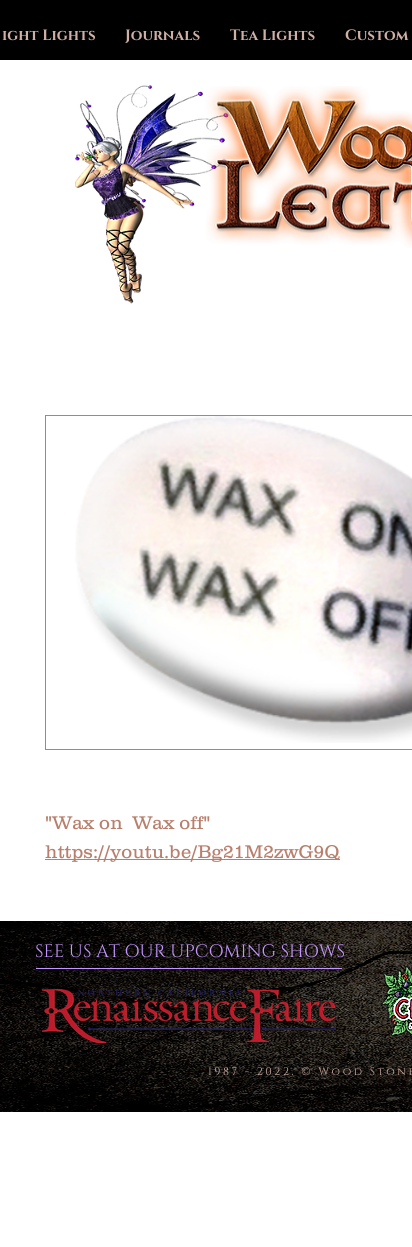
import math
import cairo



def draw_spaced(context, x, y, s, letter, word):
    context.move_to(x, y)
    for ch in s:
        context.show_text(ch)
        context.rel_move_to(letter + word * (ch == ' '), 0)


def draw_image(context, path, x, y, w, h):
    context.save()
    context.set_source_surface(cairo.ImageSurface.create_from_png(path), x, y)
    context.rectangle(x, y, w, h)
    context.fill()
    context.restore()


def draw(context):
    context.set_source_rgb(1, 1, 1)
    context.paint()
    context.set_source_rgb(0, 0, 0)
    context.rectangle(0, 0, 412, 60)
    context.fill()
    draw_image(context, "images/1.png", 75, 85, 154, 219)
    draw_image(context, "images/2.png", 206, 86, 206, 162)
    context.rectangle(45.5, 415.5, 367, 334)
    context.set_source_rgb(185 / 255, 127 / 255, 109 / 255)
    context.set_line_width(1)
    context.stroke()
    draw_image(context, "images/3.png", 75, 416, 337, 327)
    context.rectangle(45, 859, 295, 1)
    context.fill()
    draw_image(context, "images/4.png", 0, 921, 412, 191)
    context.set_source_rgb(196 / 255, 150 / 255, 1)
    context.rectangle(36, 968, 306, 1)
    context.fill()
    draw_image(context, "images/5.png", 381, 966, 31, 71)
    draw_image(context, "images/6.png", 42, 989, 294, 55)
    context.select_font_face("Cinzel", cairo.FontSlant.NORMAL, cairo.FontWeight.BOLD)
    context.set_font_size(15)
    context.set_source_rgb(208 / 255, 176 / 255, 166 / 255)
    context.move_to(2, 40)
    context.show_text("ight Lights")
    context.move_to(125, 40)
    context.show_text("Journals")
    context.move_to(230, 40)
    context.show_text("Tea Lights")
    context.move_to(345, 40)
    context.show_text("Custom")
    context.select_font_face("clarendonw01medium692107 Light")
    context.set_font_size(19)
    context.set_source_rgb(185 / 255, 127 / 255, 109 / 255)
    context.move_to(45, 829)
    context.show_text("\"Wax on  Wax off\"")
    context.move_to(45, 858)
    context.show_text("https://youtu.be/Bg21M2zwG9Q")
    context.select_font_face("Cinzel")
    context.set_font_size(18)
    context.set_source_rgb(196 / 255, 150 / 255, 1)
    context.move_to(35, 957)
    context.show_text("SEE US AT OUR UPCOMING SHOWS")
    context.set_font_size(11)
    context.set_source_rgb(208 / 255, 176 / 255, 166 / 255)
    draw_spaced(context, 208, 1075, "1987 - 2022. © Wood Stone", 2.5, 0)


surface = cairo.ImageSurface(cairo.Format.RGB24, 412, 1247)
context = cairo.Context(surface)
options = cairo.FontOptions()
options.set_hint_metrics(cairo.HintMetrics.OFF)
options.set_hint_style(cairo.HintStyle.NONE)
context.set_font_options(options)
context.set_miter_limit(4)
draw(context)
surface.write_to_png("out.png")
